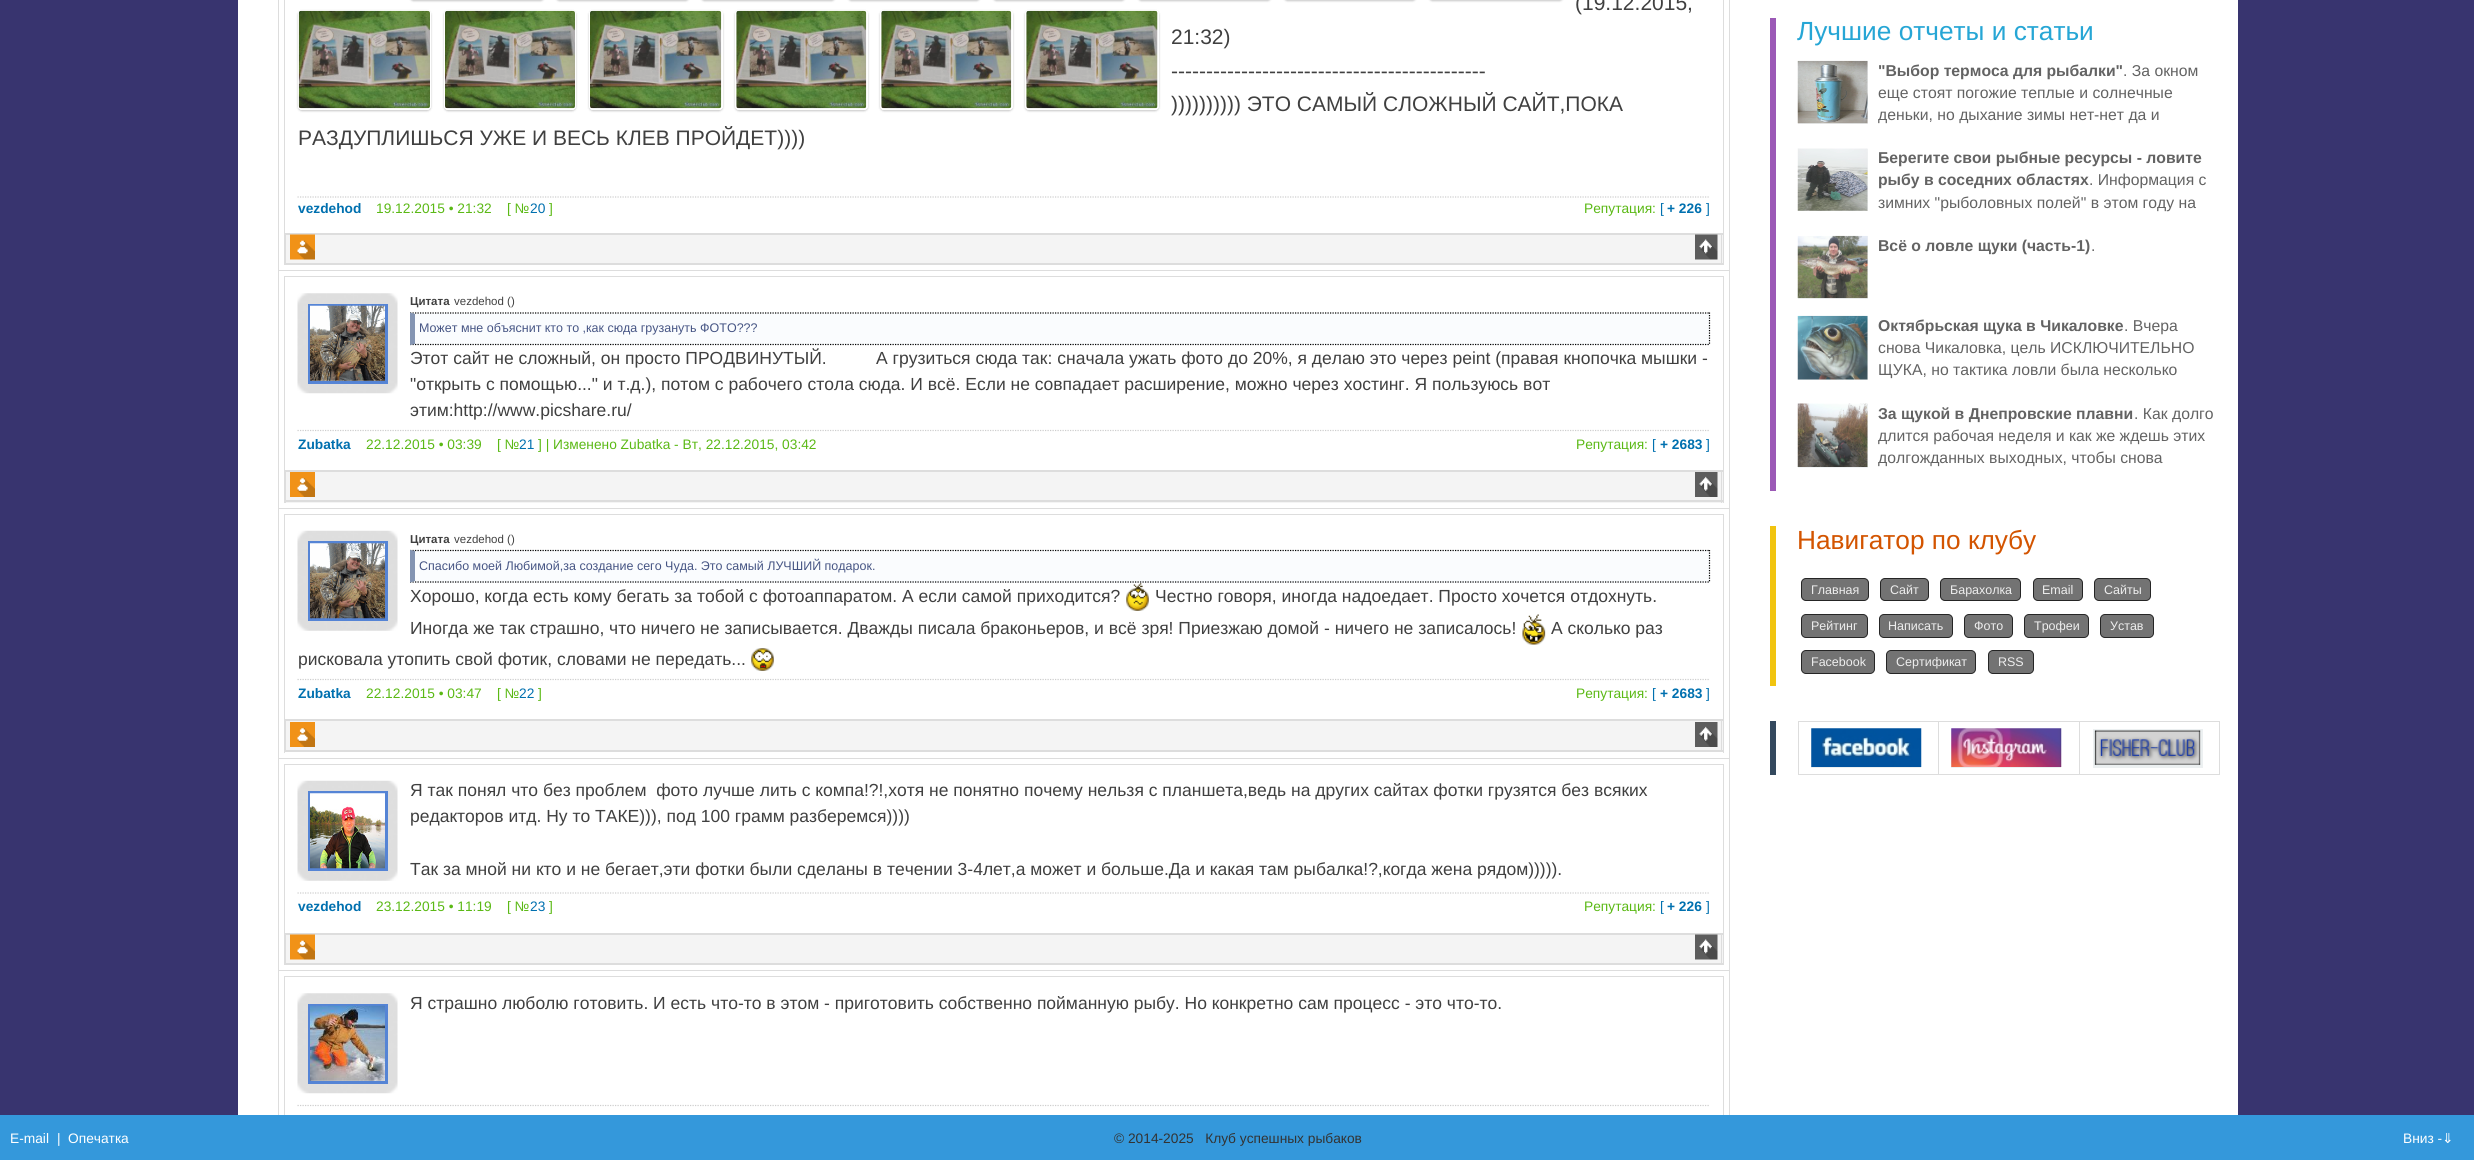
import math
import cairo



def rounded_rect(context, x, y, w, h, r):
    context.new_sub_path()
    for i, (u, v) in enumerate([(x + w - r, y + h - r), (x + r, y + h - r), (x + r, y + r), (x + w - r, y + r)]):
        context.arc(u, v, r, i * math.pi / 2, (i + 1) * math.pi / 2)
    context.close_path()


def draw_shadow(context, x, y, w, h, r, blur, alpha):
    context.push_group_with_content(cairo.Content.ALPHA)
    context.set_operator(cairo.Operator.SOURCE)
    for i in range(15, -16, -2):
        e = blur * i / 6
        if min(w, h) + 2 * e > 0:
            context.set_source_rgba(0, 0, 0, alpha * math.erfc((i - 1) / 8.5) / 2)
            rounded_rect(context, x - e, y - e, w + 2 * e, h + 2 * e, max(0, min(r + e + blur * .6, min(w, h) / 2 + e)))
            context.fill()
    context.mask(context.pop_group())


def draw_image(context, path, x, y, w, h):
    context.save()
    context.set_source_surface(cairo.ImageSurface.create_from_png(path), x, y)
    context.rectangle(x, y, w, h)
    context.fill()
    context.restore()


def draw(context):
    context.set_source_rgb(56 / 255, 52 / 255, 111 / 255)
    context.paint()
    context.set_source_rgb(1, 1, 1)
    context.rectangle(238, 0, 2000, 1115)
    context.fill()
    context.set_source_rgb(221 / 255, 221 / 255, 221 / 255)
    context.rectangle(1729, 0, 1, 1115)
    context.fill()
    context.rectangle(278, 0, 1, 1115)
    context.fill()
    context.rectangle(1723, 0, 1, 265)
    context.fill()
    context.rectangle(284, 264, 1440, 1)
    context.fill()
    context.rectangle(284, 0, 1, 265)
    context.fill()
    context.set_source_rgb(26 / 255, 26 / 255, 26 / 255)
    draw_shadow(context, 410, -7, 134, 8, 4, 1, 0.25)
    draw_shadow(context, 556, -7, 133, 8, 4, 1, 0.25)
    draw_shadow(context, 701, -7, 134, 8, 4, 1, 0.25)
    draw_shadow(context, 848, -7, 132, 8, 4, 1, 0.25)
    draw_shadow(context, 993, -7, 132, 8, 4, 1, 0.25)
    draw_shadow(context, 1138, -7, 133, 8, 4, 1, 0.25)
    draw_shadow(context, 1284, -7, 132, 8, 4, 1, 0.25)
    draw_shadow(context, 1429, -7, 134, 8, 4, 1, 0.25)
    context.save()
    context.set_fill_rule(cairo.FillRule.EVEN_ODD)
    context.new_path()
    context.move_to(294, 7)
    context.line_to(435, 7)
    context.line_to(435, 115)
    context.line_to(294, 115)
    context.close_path()
    context.move_to(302, 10)
    context.line_to(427, 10)
    context.curve_to(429, 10, 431, 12, 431, 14)
    context.line_to(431, 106)
    context.curve_to(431, 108, 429, 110, 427, 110)
    context.line_to(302, 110)
    context.curve_to(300, 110, 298, 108, 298, 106)
    context.line_to(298, 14)
    context.curve_to(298, 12, 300, 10, 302, 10)
    context.close_path()
    context.clip()
    draw_shadow(context, 298, 11, 133, 100, 4, 1, 0.25)
    context.restore()
    rounded_rect(context, 298.5, 10.5, 132, 99, 3.5)
    context.set_source_rgb(1, 1, 1)
    context.set_line_width(1)
    context.stroke()
    draw_image(context, "images/1.png", 298, 10, 132, 99)
    context.save()
    context.set_fill_rule(cairo.FillRule.EVEN_ODD)
    context.new_path()
    context.move_to(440, 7)
    context.line_to(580, 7)
    context.line_to(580, 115)
    context.line_to(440, 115)
    context.close_path()
    context.move_to(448, 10)
    context.line_to(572, 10)
    context.curve_to(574, 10, 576, 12, 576, 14)
    context.line_to(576, 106)
    context.curve_to(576, 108, 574, 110, 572, 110)
    context.line_to(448, 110)
    context.curve_to(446, 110, 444, 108, 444, 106)
    context.line_to(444, 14)
    context.curve_to(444, 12, 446, 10, 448, 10)
    context.close_path()
    context.clip()
    context.set_source_rgb(26 / 255, 26 / 255, 26 / 255)
    draw_shadow(context, 444, 11, 132, 100, 4, 1, 0.25)
    context.restore()
    rounded_rect(context, 444.5, 10.5, 131, 99, 3.5)
    context.stroke()
    draw_image(context, "images/2.png", 445, 10, 130, 99)
    context.save()
    context.set_fill_rule(cairo.FillRule.EVEN_ODD)
    context.new_path()
    context.move_to(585, 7)
    context.line_to(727, 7)
    context.line_to(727, 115)
    context.line_to(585, 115)
    context.close_path()
    context.move_to(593, 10)
    context.line_to(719, 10)
    context.curve_to(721, 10, 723, 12, 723, 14)
    context.line_to(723, 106)
    context.curve_to(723, 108, 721, 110, 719, 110)
    context.line_to(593, 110)
    context.curve_to(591, 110, 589, 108, 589, 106)
    context.line_to(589, 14)
    context.curve_to(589, 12, 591, 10, 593, 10)
    context.close_path()
    context.clip()
    context.set_source_rgb(26 / 255, 26 / 255, 26 / 255)
    draw_shadow(context, 589, 11, 134, 100, 4, 1, 0.25)
    context.restore()
    rounded_rect(context, 589.5, 10.5, 133, 99, 3.5)
    context.stroke()
    draw_image(context, "images/3.png", 590, 10, 132, 99)
    context.save()
    context.set_fill_rule(cairo.FillRule.EVEN_ODD)
    context.new_path()
    context.move_to(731, 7)
    context.line_to(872, 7)
    context.line_to(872, 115)
    context.line_to(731, 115)
    context.close_path()
    context.move_to(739, 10)
    context.line_to(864, 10)
    context.curve_to(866, 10, 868, 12, 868, 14)
    context.line_to(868, 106)
    context.curve_to(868, 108, 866, 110, 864, 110)
    context.line_to(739, 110)
    context.curve_to(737, 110, 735, 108, 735, 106)
    context.line_to(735, 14)
    context.curve_to(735, 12, 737, 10, 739, 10)
    context.close_path()
    context.clip()
    context.set_source_rgb(26 / 255, 26 / 255, 26 / 255)
    draw_shadow(context, 735, 11, 133, 100, 4, 1, 0.25)
    context.restore()
    rounded_rect(context, 735.5, 10.5, 132, 99, 3.5)
    context.stroke()
    draw_image(context, "images/4.png", 736, 10, 131, 99)
    context.save()
    context.set_fill_rule(cairo.FillRule.EVEN_ODD)
    context.new_path()
    context.move_to(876, 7)
    context.line_to(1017, 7)
    context.line_to(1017, 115)
    context.line_to(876, 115)
    context.close_path()
    context.move_to(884, 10)
    context.line_to(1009, 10)
    context.curve_to(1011, 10, 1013, 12, 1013, 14)
    context.line_to(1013, 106)
    context.curve_to(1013, 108, 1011, 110, 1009, 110)
    context.line_to(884, 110)
    context.curve_to(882, 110, 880, 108, 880, 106)
    context.line_to(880, 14)
    context.curve_to(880, 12, 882, 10, 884, 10)
    context.close_path()
    context.clip()
    context.set_source_rgb(26 / 255, 26 / 255, 26 / 255)
    draw_shadow(context, 880, 11, 133, 100, 4, 1, 0.25)
    context.restore()
    rounded_rect(context, 880.5, 10.5, 132, 99, 3.5)
    context.stroke()
    draw_image(context, "images/5.png", 881, 10, 131, 99)
    context.save()
    context.set_fill_rule(cairo.FillRule.EVEN_ODD)
    context.new_path()
    context.move_to(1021, 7)
    context.line_to(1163, 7)
    context.line_to(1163, 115)
    context.line_to(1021, 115)
    context.close_path()
    context.move_to(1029, 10)
    context.line_to(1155, 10)
    context.curve_to(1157, 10, 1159, 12, 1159, 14)
    context.line_to(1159, 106)
    context.curve_to(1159, 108, 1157, 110, 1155, 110)
    context.line_to(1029, 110)
    context.curve_to(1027, 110, 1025, 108, 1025, 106)
    context.line_to(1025, 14)
    context.curve_to(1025, 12, 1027, 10, 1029, 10)
    context.close_path()
    context.clip()
    context.set_source_rgb(26 / 255, 26 / 255, 26 / 255)
    draw_shadow(context, 1025, 11, 134, 100, 4, 1, 0.25)
    context.restore()
    rounded_rect(context, 1025.5, 10.5, 133, 99, 3.5)
    context.stroke()
    draw_image(context, "images/6.png", 1026, 10, 132, 99)
    context.new_path()
    context.move_to(297.5, 197)
    context.line_to(1710, 197)
    context.set_source_rgb(206 / 255, 206 / 255, 206 / 255)
    context.set_line_width(1.2)
    context.set_dash([1.25, 1.25])
    context.stroke()
    context.set_source_rgb(244 / 255, 244 / 255, 244 / 255)
    context.rectangle(286, 235, 1437, 28)
    context.fill()
    context.set_source_rgb(221 / 255, 221 / 255, 221 / 255)
    context.rectangle(285, 233, 1438, 2)
    context.fill()
    context.rectangle(1721, 234, 1, 30)
    context.fill()
    context.rectangle(285, 263, 1438, 1)
    context.fill()
    context.rectangle(285, 234, 1, 30)
    context.fill()
    draw_image(context, "images/7.png", 290, 234, 25, 26)
    draw_image(context, "images/8.png", 1695, 234, 23, 26)
    context.rectangle(278, 270, 1452, 1)
    context.fill()
    context.rectangle(284, 276, 1440, 1)
    context.fill()
    context.rectangle(1723, 276, 1, 227)
    context.fill()
    context.set_source_rgb(244 / 255, 244 / 255, 244 / 255)
    context.rectangle(286, 472, 1437, 31)
    context.fill()
    context.set_source_rgb(221 / 255, 221 / 255, 221 / 255)
    context.rectangle(285, 470, 1438, 2)
    context.fill()
    context.rectangle(285, 500, 1438, 1)
    context.fill()
    context.rectangle(1721, 470, 1, 33)
    context.fill()
    context.rectangle(285, 470, 1, 33)
    context.fill()
    context.rectangle(284, 501, 1440, 1)
    context.fill()
    context.rectangle(284, 276, 1, 227)
    context.fill()
    draw_image(context, "images/9.png", 297, 293, 101, 101)
    context.rectangle(309.5, 305.5, 77, 77)
    context.set_source_rgb(85 / 255, 132 / 255, 213 / 255)
    context.set_line_width(3)
    context.set_dash([])
    context.stroke()
    draw_image(context, "images/10.png", 310, 305, 75, 76)
    context.set_source_rgb(250 / 255, 252 / 255, 254 / 255)
    context.rectangle(411, 313, 1299, 32)
    context.fill()
    context.new_path()
    context.move_to(410, 313)
    context.line_to(1710, 313)
    context.set_source_rgb(0, 0, 0)
    context.set_line_width(1.2)
    context.set_dash([1.25, 1.25])
    context.stroke()
    context.new_path()
    context.move_to(1709.5, 312.5)
    context.line_to(1709.5, 345)
    context.stroke()
    context.new_path()
    context.move_to(410, 344.5)
    context.line_to(1710, 344.5)
    context.stroke()
    context.set_source_rgb(131 / 255, 148 / 255, 178 / 255)
    context.new_path()
    context.move_to(410, 345)
    context.line_to(410, 312.5)
    context.line_to(415, 314)
    context.line_to(415, 344)
    context.close_path()
    context.fill()
    context.new_path()
    context.move_to(297.5, 430.5)
    context.line_to(1710, 430.5)
    context.set_source_rgb(206 / 255, 206 / 255, 206 / 255)
    context.stroke()
    draw_image(context, "images/11.png", 290, 472, 25, 25)
    draw_image(context, "images/12.png", 1695, 472, 23, 25)
    context.set_source_rgb(221 / 255, 221 / 255, 221 / 255)
    context.rectangle(278, 508, 1452, 1)
    context.fill()
    context.rectangle(284, 514, 1440, 1)
    context.fill()
    context.rectangle(1723, 514, 1, 239)
    context.fill()
    context.rectangle(284, 751, 1440, 1)
    context.fill()
    context.rectangle(284, 514, 1, 239)
    context.fill()
    draw_image(context, "images/13.png", 297, 530, 101, 101)
    context.rectangle(309.5, 542.5, 77, 77)
    context.set_source_rgb(85 / 255, 132 / 255, 213 / 255)
    context.set_line_width(3)
    context.set_dash([])
    context.stroke()
    draw_image(context, "images/14.png", 310, 543, 75, 76)
    context.set_source_rgb(250 / 255, 252 / 255, 254 / 255)
    context.rectangle(410, 550, 1300, 33)
    context.fill()
    context.new_path()
    context.move_to(410, 550.5)
    context.line_to(1710, 550.5)
    context.set_source_rgb(0, 0, 0)
    context.set_line_width(1.2)
    context.set_dash([1.25, 1.25])
    context.stroke()
    context.new_path()
    context.move_to(1709.5, 550)
    context.line_to(1709.5, 582.5)
    context.stroke()
    context.new_path()
    context.move_to(410, 582)
    context.line_to(1710, 582)
    context.stroke()
    context.set_source_rgb(131 / 255, 148 / 255, 178 / 255)
    context.new_path()
    context.move_to(410, 582.5)
    context.line_to(410, 550)
    context.line_to(415, 551)
    context.line_to(415, 581)
    context.close_path()
    context.fill()
    draw_image(context, "images/15.png", 1126, 583, 23, 28)
    draw_image(context, "images/16.png", 1522, 614, 24, 31)
    draw_image(context, "images/17.png", 751, 648, 23, 23)
    context.new_path()
    context.move_to(297.5, 679.5)
    context.line_to(1710, 679.5)
    context.set_source_rgb(206 / 255, 206 / 255, 206 / 255)
    context.stroke()
    context.set_source_rgb(244 / 255, 244 / 255, 244 / 255)
    context.rectangle(286, 721, 1437, 29)
    context.fill()
    context.set_source_rgb(221 / 255, 221 / 255, 221 / 255)
    context.rectangle(284, 719, 1440, 1)
    context.fill()
    context.rectangle(285, 720, 1438, 1)
    context.fill()
    context.rectangle(1721, 720, 1, 31)
    context.fill()
    context.rectangle(285, 750, 1438, 1)
    context.fill()
    context.rectangle(285, 720, 1, 31)
    context.fill()
    draw_image(context, "images/11.png", 290, 722, 25, 25)
    draw_image(context, "images/12.png", 1695, 722, 23, 25)
    context.rectangle(278, 758, 1452, 1)
    context.fill()
    context.rectangle(284, 764, 1440, 1)
    context.fill()
    context.rectangle(1723, 764, 1, 201)
    context.fill()
    context.set_source_rgb(244 / 255, 244 / 255, 244 / 255)
    context.rectangle(286, 935, 1437, 28)
    context.fill()
    context.set_source_rgb(221 / 255, 221 / 255, 221 / 255)
    context.rectangle(285, 933, 1438, 2)
    context.fill()
    context.rectangle(285, 963, 1438, 1)
    context.fill()
    context.rectangle(1721, 933, 1, 32)
    context.fill()
    context.rectangle(284, 964, 1440, 1)
    context.fill()
    context.rectangle(284, 764, 1, 201)
    context.fill()
    draw_image(context, "images/13.png", 297, 780, 101, 101)
    context.rectangle(309.5, 792.5, 77, 77)
    context.set_source_rgb(85 / 255, 132 / 255, 213 / 255)
    context.set_line_width(3)
    context.set_dash([])
    context.stroke()
    draw_image(context, "images/18.png", 310, 793, 75, 76)
    context.new_path()
    context.move_to(297.5, 893)
    context.line_to(1710, 893)
    context.set_source_rgb(206 / 255, 206 / 255, 206 / 255)
    context.set_line_width(1.2)
    context.set_dash([1.25, 1.25])
    context.stroke()
    context.set_source_rgb(221 / 255, 221 / 255, 221 / 255)
    context.rectangle(285, 934, 1, 30)
    context.fill()
    draw_image(context, "images/7.png", 290, 934, 25, 26)
    draw_image(context, "images/8.png", 1695, 934, 23, 26)
    context.rectangle(278, 970, 1452, 1)
    context.fill()
    context.rectangle(284, 976, 1440, 1)
    context.fill()
    context.rectangle(1723, 976, 1, 139)
    context.fill()
    context.rectangle(284, 976, 1, 139)
    context.fill()
    draw_image(context, "images/19.png", 297, 993, 101, 101)
    context.rectangle(309.5, 1005.5, 77, 77)
    context.set_source_rgb(85 / 255, 132 / 255, 213 / 255)
    context.set_line_width(3)
    context.set_dash([])
    context.stroke()
    draw_image(context, "images/20.png", 310, 1005, 75, 76)
    context.new_path()
    context.move_to(297.5, 1105.5)
    context.line_to(1710, 1105.5)
    context.set_source_rgb(206 / 255, 206 / 255, 206 / 255)
    context.set_line_width(1.2)
    context.set_dash([1.25, 1.25])
    context.stroke()
    context.set_source_rgb(155 / 255, 89 / 255, 182 / 255)
    context.rectangle(1770, 18, 6, 473)
    context.fill()
    context.set_source_rgb(240 / 255, 243 / 255, 244 / 255)
    context.rectangle(1798, 61, 70, 63)
    context.fill()
    draw_image(context, "images/21.png", 1797, 60, 71, 64)
    context.rectangle(1798, 149, 70, 62)
    context.fill()
    draw_image(context, "images/22.png", 1797, 148, 71, 63)
    context.rectangle(1798, 236, 70, 63)
    context.fill()
    draw_image(context, "images/23.png", 1797, 235, 71, 64)
    context.rectangle(1798, 316, 70, 64)
    context.fill()
    draw_image(context, "images/24.png", 1797, 315, 71, 65)
    context.rectangle(1798, 404, 70, 64)
    context.fill()
    draw_image(context, "images/25.png", 1797, 403, 71, 64)
    context.set_source_rgb(241 / 255, 196 / 255, 15 / 255)
    context.rectangle(1770, 526, 6, 160)
    context.fill()
    context.set_source_rgb(115 / 255, 115 / 255, 115 / 255)
    rounded_rect(context, 1801.5, 578.5, 67, 22, 4.5)
    context.fill_preserve()
    context.set_source_rgb(37 / 255, 37 / 255, 37 / 255)
    context.set_line_width(1)
    context.set_dash([])
    context.stroke()
    context.set_source_rgb(115 / 255, 115 / 255, 115 / 255)
    rounded_rect(context, 1880.5, 578.5, 48, 22, 4.5)
    context.fill_preserve()
    context.set_source_rgb(37 / 255, 37 / 255, 37 / 255)
    context.stroke()
    context.set_source_rgb(115 / 255, 115 / 255, 115 / 255)
    rounded_rect(context, 1940.5, 578.5, 80, 22, 4.5)
    context.fill_preserve()
    context.set_source_rgb(37 / 255, 37 / 255, 37 / 255)
    context.stroke()
    context.set_source_rgb(115 / 255, 115 / 255, 115 / 255)
    rounded_rect(context, 2033.5, 578.5, 49, 22, 4.5)
    context.fill_preserve()
    context.set_source_rgb(37 / 255, 37 / 255, 37 / 255)
    context.stroke()
    context.set_source_rgb(115 / 255, 115 / 255, 115 / 255)
    rounded_rect(context, 2094.5, 578.5, 56, 22, 4.5)
    context.fill_preserve()
    context.set_source_rgb(37 / 255, 37 / 255, 37 / 255)
    context.stroke()
    context.set_source_rgb(115 / 255, 115 / 255, 115 / 255)
    rounded_rect(context, 1801.5, 614.5, 66, 23, 4.5)
    context.fill_preserve()
    context.set_source_rgb(37 / 255, 37 / 255, 37 / 255)
    context.stroke()
    context.set_source_rgb(115 / 255, 115 / 255, 115 / 255)
    rounded_rect(context, 1879.5, 614.5, 73, 23, 4.5)
    context.fill_preserve()
    context.set_source_rgb(37 / 255, 37 / 255, 37 / 255)
    context.stroke()
    context.set_source_rgb(115 / 255, 115 / 255, 115 / 255)
    rounded_rect(context, 1964.5, 614.5, 48, 23, 4.5)
    context.fill_preserve()
    context.set_source_rgb(37 / 255, 37 / 255, 37 / 255)
    context.stroke()
    context.set_source_rgb(115 / 255, 115 / 255, 115 / 255)
    rounded_rect(context, 2024.5, 614.5, 64, 23, 4.5)
    context.fill_preserve()
    context.set_source_rgb(37 / 255, 37 / 255, 37 / 255)
    context.stroke()
    context.set_source_rgb(115 / 255, 115 / 255, 115 / 255)
    rounded_rect(context, 2100.5, 614.5, 53, 23, 4.5)
    context.fill_preserve()
    context.set_source_rgb(37 / 255, 37 / 255, 37 / 255)
    context.stroke()
    context.set_source_rgb(115 / 255, 115 / 255, 115 / 255)
    rounded_rect(context, 1801.5, 650.5, 73, 23, 4.5)
    context.fill_preserve()
    context.set_source_rgb(37 / 255, 37 / 255, 37 / 255)
    context.stroke()
    context.set_source_rgb(115 / 255, 115 / 255, 115 / 255)
    rounded_rect(context, 1886.5, 650.5, 89, 23, 4.5)
    context.fill_preserve()
    context.set_source_rgb(37 / 255, 37 / 255, 37 / 255)
    context.stroke()
    context.set_source_rgb(115 / 255, 115 / 255, 115 / 255)
    rounded_rect(context, 1988.5, 650.5, 45, 23, 4.5)
    context.fill_preserve()
    context.set_source_rgb(37 / 255, 37 / 255, 37 / 255)
    context.stroke()
    context.set_source_rgb(52 / 255, 73 / 255, 94 / 255)
    context.rectangle(1770, 721, 6, 54)
    context.fill()
    context.set_source_rgb(221 / 255, 221 / 255, 221 / 255)
    context.rectangle(1798, 721, 422, 1)
    context.fill()
    context.rectangle(2219, 721, 1, 54)
    context.fill()
    context.rectangle(1798, 774, 422, 1)
    context.fill()
    context.rectangle(1798, 721, 1, 54)
    context.fill()
    context.set_source_rgb(236 / 255, 240 / 255, 241 / 255)
    context.rectangle(1811, 729, 110, 39)
    context.fill()
    draw_image(context, "images/26.png", 1811, 728, 111, 39)
    context.set_source_rgb(221 / 255, 221 / 255, 221 / 255)
    context.rectangle(1938, 721, 1, 54)
    context.fill()
    context.set_source_rgb(236 / 255, 240 / 255, 241 / 255)
    context.rectangle(1951, 729, 110, 39)
    context.fill()
    draw_image(context, "images/27.png", 1951, 728, 111, 39)
    context.set_source_rgb(221 / 255, 221 / 255, 221 / 255)
    context.rectangle(2079, 721, 1, 54)
    context.fill()
    context.set_source_rgb(236 / 255, 240 / 255, 241 / 255)
    context.rectangle(2093, 729, 110, 39)
    context.fill()
    draw_image(context, "images/28.png", 2094, 730, 107, 35)
    context.set_source_rgb(52 / 255, 152 / 255, 219 / 255)
    context.rectangle(0, 1115, 2474, 45)
    context.fill()
    context.select_font_face("Liberation Sans")
    context.set_font_size(21)
    context.set_source_rgb(64 / 255, 64 / 255, 64 / 255)
    context.move_to(1575, 10)
    context.show_text("(19.12.2015,")
    context.move_to(1171, 44)
    context.show_text("21:32)")
    context.move_to(1171, 78)
    context.show_text("---------------------------------------------")
    context.move_to(1171, 111)
    context.show_text(")))))))))) ЭТО САМЫЙ СЛОЖНЫЙ САЙТ,ПОКА")
    context.move_to(298, 145)
    context.show_text("РАЗДУПЛИШЬСЯ УЖЕ И ВЕСЬ КЛЕВ ПРОЙДЕТ))))")
    context.select_font_face("Liberation Sans", cairo.FontSlant.NORMAL, cairo.FontWeight.BOLD)
    context.set_font_size(13.75)
    context.set_source_rgb(0, 112 / 255, 175 / 255)
    context.move_to(298, 213)
    context.show_text("vezdehod")
    context.select_font_face("Liberation Sans")
    context.set_source_rgb(91 / 255, 185 / 255, 21 / 255)
    context.move_to(376, 213)
    context.show_text("19.12.2015 • 21:32    [ №")
    context.set_source_rgb(0, 112 / 255, 175 / 255)
    context.move_to(530, 213)
    context.show_text("20")
    context.set_source_rgb(91 / 255, 185 / 255, 21 / 255)
    context.move_to(549, 213)
    context.show_text("]")
    context.move_to(1584, 213)
    context.show_text("Репутация:")
    context.set_source_rgb(0, 112 / 255, 175 / 255)
    context.move_to(1660, 213)
    context.show_text("[")
    context.select_font_face("Liberation Sans", cairo.FontSlant.NORMAL, cairo.FontWeight.BOLD)
    context.move_to(1667, 213)
    context.show_text("+ 226")
    context.select_font_face("Liberation Sans")
    context.move_to(1706, 213)
    context.show_text("]")
    context.select_font_face("Liberation Sans", cairo.FontSlant.NORMAL, cairo.FontWeight.BOLD)
    context.set_font_size(11.5)
    context.set_source_rgb(64 / 255, 64 / 255, 64 / 255)
    context.move_to(410, 305)
    context.show_text("Цитата")
    context.select_font_face("Liberation Sans")
    context.move_to(454, 305)
    context.show_text("vezdehod ()")
    context.set_font_size(12.5)
    context.set_source_rgb(70 / 255, 85 / 255, 132 / 255)
    context.move_to(419, 332)
    context.show_text("Может мне объяснит кто то ,как сюда грузануть ФОТО???")
    context.set_font_size(17.5)
    context.set_source_rgb(64 / 255, 64 / 255, 64 / 255)
    context.move_to(410, 364)
    context.show_text("Этот сайт не сложный, он просто ПРОДВИНУТЫЙ.")
    context.move_to(876, 364)
    context.show_text("А грузиться сюда так: сначала ужать фото до 20%, я делаю это через peint (правая кнопочка мышки -")
    context.move_to(410, 390)
    context.show_text("\"открыть с помощью...\" и т.д.), потом с рабочего стола сюда. И всё. Если не совпадает расширение, можно через хостинг. Я пользуюсь вот")
    context.move_to(410, 416)
    context.show_text("этим:http://www.picshare.ru/")
    context.select_font_face("Liberation Sans", cairo.FontSlant.NORMAL, cairo.FontWeight.BOLD)
    context.set_font_size(13.75)
    context.set_source_rgb(0, 112 / 255, 175 / 255)
    context.move_to(298, 449)
    context.show_text("Zubatka")
    context.select_font_face("Liberation Sans")
    context.set_source_rgb(91 / 255, 185 / 255, 21 / 255)
    context.move_to(366, 449)
    context.show_text("22.12.2015 • 03:39    [ №")
    context.set_source_rgb(0, 112 / 255, 175 / 255)
    context.move_to(519, 449)
    context.show_text("21")
    context.set_source_rgb(91 / 255, 185 / 255, 21 / 255)
    context.move_to(538, 449)
    context.show_text("] | Изменено Zubatka - Вт, 22.12.2015, 03:42")
    context.move_to(1576, 449)
    context.show_text("Репутация:")
    context.set_source_rgb(0, 112 / 255, 175 / 255)
    context.move_to(1652, 449)
    context.show_text("[")
    context.select_font_face("Liberation Sans", cairo.FontSlant.NORMAL, cairo.FontWeight.BOLD)
    context.move_to(1660, 449)
    context.show_text("+ 2683")
    context.select_font_face("Liberation Sans")
    context.move_to(1706, 449)
    context.show_text("]")
    context.select_font_face("Liberation Sans", cairo.FontSlant.NORMAL, cairo.FontWeight.BOLD)
    context.set_font_size(11.5)
    context.set_source_rgb(64 / 255, 64 / 255, 64 / 255)
    context.move_to(410, 543)
    context.show_text("Цитата")
    context.select_font_face("Liberation Sans")
    context.move_to(454, 543)
    context.show_text("vezdehod ()")
    context.set_font_size(12.5)
    context.set_source_rgb(70 / 255, 85 / 255, 132 / 255)
    context.move_to(419, 570)
    context.show_text("Спасибо моей Любимой,за создание сего Чуда. Это самый ЛУЧШИЙ подарок.")
    context.set_font_size(17.5)
    context.set_source_rgb(64 / 255, 64 / 255, 64 / 255)
    context.move_to(410, 602)
    context.show_text("Хорошо, когда есть кому бегать за тобой с фотоаппаратом. А если самой приходится?")
    context.move_to(1155, 602)
    context.show_text("Честно говоря, иногда надоедает. Просто хочется отдохнуть.")
    context.move_to(410, 634)
    context.show_text("Иногда же так страшно, что ничего не записывается. Дважды писала браконьеров, и всё зря! Приезжаю домой - ничего не записалось!")
    context.move_to(1551, 634)
    context.show_text("А сколько раз")
    context.move_to(298, 665)
    context.show_text("рисковала утопить свой фотик, словами не передать...")
    context.select_font_face("Liberation Sans", cairo.FontSlant.NORMAL, cairo.FontWeight.BOLD)
    context.set_font_size(13.75)
    context.set_source_rgb(0, 112 / 255, 175 / 255)
    context.move_to(298, 698)
    context.show_text("Zubatka")
    context.select_font_face("Liberation Sans")
    context.set_source_rgb(91 / 255, 185 / 255, 21 / 255)
    context.move_to(366, 698)
    context.show_text("22.12.2015 • 03:47    [ №")
    context.set_source_rgb(0, 112 / 255, 175 / 255)
    context.move_to(519, 698)
    context.show_text("22")
    context.set_source_rgb(91 / 255, 185 / 255, 21 / 255)
    context.move_to(538, 698)
    context.show_text("]")
    context.move_to(1576, 698)
    context.show_text("Репутация:")
    context.set_source_rgb(0, 112 / 255, 175 / 255)
    context.move_to(1652, 698)
    context.show_text("[")
    context.select_font_face("Liberation Sans", cairo.FontSlant.NORMAL, cairo.FontWeight.BOLD)
    context.move_to(1660, 698)
    context.show_text("+ 2683")
    context.select_font_face("Liberation Sans")
    context.move_to(1706, 698)
    context.show_text("]")
    context.set_font_size(17.5)
    context.set_source_rgb(64 / 255, 64 / 255, 64 / 255)
    context.move_to(410, 796)
    context.show_text("Я так понял что без проблем  фото лучше лить с компа!?!,хотя не понятно почему нельзя с планшета,ведь на других сайтах фотки грузятся без всяких")
    context.move_to(410, 822)
    context.show_text("редакторов итд. Ну то ТАКЕ))), под 100 грамм разберемся))))")
    context.move_to(410, 875)
    context.show_text("Так за мной ни кто и не бегает,эти фотки были сделаны в течении 3-4лет,а может и больше.Да и какая там рыбалка!?,когда жена рядом))))).")
    context.select_font_face("Liberation Sans", cairo.FontSlant.NORMAL, cairo.FontWeight.BOLD)
    context.set_font_size(13.75)
    context.set_source_rgb(0, 112 / 255, 175 / 255)
    context.move_to(298, 911)
    context.show_text("vezdehod")
    context.select_font_face("Liberation Sans")
    context.set_source_rgb(91 / 255, 185 / 255, 21 / 255)
    context.move_to(376, 911)
    context.show_text("23.12.2015 • 11:19    [ №")
    context.set_source_rgb(0, 112 / 255, 175 / 255)
    context.move_to(530, 911)
    context.show_text("23")
    context.set_source_rgb(91 / 255, 185 / 255, 21 / 255)
    context.move_to(549, 911)
    context.show_text("]")
    context.move_to(1584, 911)
    context.show_text("Репутация:")
    context.set_source_rgb(0, 112 / 255, 175 / 255)
    context.move_to(1660, 911)
    context.show_text("[")
    context.select_font_face("Liberation Sans", cairo.FontSlant.NORMAL, cairo.FontWeight.BOLD)
    context.move_to(1667, 911)
    context.show_text("+ 226")
    context.select_font_face("Liberation Sans")
    context.move_to(1706, 911)
    context.show_text("]")
    context.set_font_size(17.5)
    context.set_source_rgb(64 / 255, 64 / 255, 64 / 255)
    context.move_to(410, 1009)
    context.show_text("Я страшно люболю готовить. И есть что-то в этом - приготовить собственно пойманную рыбу. Но конкретно сам процесс - это что-то.")
    context.set_font_size(26.25)
    context.set_source_rgb(38 / 255, 166 / 255, 213 / 255)
    context.move_to(1797, 40)
    context.show_text("Лучшие отчеты и статьи")
    context.select_font_face("Liberation Sans", cairo.FontSlant.NORMAL, cairo.FontWeight.BOLD)
    context.set_font_size(15.75)
    context.set_source_rgb(99 / 255, 99 / 255, 99 / 255)
    context.move_to(1878, 76)
    context.show_text("\"Выбор термоса для рыбалки\"")
    context.select_font_face("Liberation Sans")
    context.move_to(2123, 76)
    context.show_text(". За окном")
    context.move_to(1878, 98)
    context.show_text("еще стоят погожие теплые и солнечные")
    context.move_to(1878, 120)
    context.show_text("деньки, но дыхание зимы нет-нет да и")
    context.select_font_face("Liberation Sans", cairo.FontSlant.NORMAL, cairo.FontWeight.BOLD)
    context.move_to(1878, 163)
    context.show_text("Берегите свои рыбные ресурсы - ловите")
    context.move_to(1878, 185)
    context.show_text("рыбу в соседних областях")
    context.select_font_face("Liberation Sans")
    context.move_to(2089, 185)
    context.show_text(". Информация с")
    context.move_to(1878, 208)
    context.show_text("зимних \"рыболовных полей\" в этом году на")
    context.select_font_face("Liberation Sans", cairo.FontSlant.NORMAL, cairo.FontWeight.BOLD)
    context.move_to(1878, 251)
    context.show_text("Всё о ловле щуки (часть-1)")
    context.select_font_face("Liberation Sans")
    context.move_to(2091, 251)
    context.show_text(".")
    context.select_font_face("Liberation Sans", cairo.FontSlant.NORMAL, cairo.FontWeight.BOLD)
    context.move_to(1878, 331)
    context.show_text("Октябрьская щука в Чикаловке")
    context.select_font_face("Liberation Sans")
    context.move_to(2124, 331)
    context.show_text(". Вчера")
    context.move_to(1878, 353)
    context.show_text("снова Чикаловка, цель ИСКЛЮЧИТЕЛЬНО")
    context.move_to(1878, 375)
    context.show_text("ЩУКА, но тактика ловли была несколько")
    context.select_font_face("Liberation Sans", cairo.FontSlant.NORMAL, cairo.FontWeight.BOLD)
    context.move_to(1878, 419)
    context.show_text("За щукой в Днепровские плавни")
    context.select_font_face("Liberation Sans")
    context.move_to(2134, 419)
    context.show_text(". Как долго")
    context.move_to(1878, 441)
    context.show_text("длится рабочая неделя и как же ждешь этих")
    context.move_to(1878, 463)
    context.show_text("долгожданных выходных, чтобы снова")
    context.set_font_size(26.25)
    context.set_source_rgb(211 / 255, 84 / 255, 0)
    context.move_to(1797, 549)
    context.show_text("Навигатор по клубу")
    context.set_font_size(12.5)
    context.set_source_rgb(238 / 255, 238 / 255, 238 / 255)
    context.move_to(1811, 594)
    context.show_text("Главная")
    context.move_to(1890, 594)
    context.show_text("Сайт")
    context.move_to(1950, 594)
    context.show_text("Барахолка")
    context.move_to(2042, 594)
    context.show_text("Email")
    context.move_to(2104, 594)
    context.show_text("Сайты")
    context.move_to(1811, 630)
    context.show_text("Рейтинг")
    context.move_to(1888, 630)
    context.show_text("Написать")
    context.move_to(1974, 630)
    context.show_text("Фото")
    context.move_to(2034, 630)
    context.show_text("Трофеи")
    context.move_to(2110, 630)
    context.show_text("Устав")
    context.move_to(1811, 666)
    context.show_text("Facebook")
    context.move_to(1896, 666)
    context.show_text("Сертификат")
    context.move_to(1998, 666)
    context.show_text("RSS")
    context.set_font_size(13.75)
    context.set_source_rgb(1, 1, 1)
    context.move_to(10, 1143)
    context.show_text("E-mail")
    context.move_to(57, 1143)
    context.show_text("|")
    context.move_to(68, 1143)
    context.show_text("Опечатка")
    context.set_source_rgb(51 / 255, 51 / 255, 51 / 255)
    context.move_to(1114, 1143)
    context.show_text("© 2014-2025   Клуб успешных рыбаков")
    context.set_source_rgb(1, 1, 1)
    context.move_to(2403, 1143)
    context.show_text("Вниз -")
    context.select_font_face("DejaVu Sans")
    context.move_to(2442, 1143)
    context.show_text("⇓")


surface = cairo.ImageSurface(cairo.Format.RGB24, 2474, 1160)
context = cairo.Context(surface)
options = cairo.FontOptions()
options.set_hint_metrics(cairo.HintMetrics.OFF)
options.set_hint_style(cairo.HintStyle.NONE)
context.set_font_options(options)
context.set_miter_limit(4)
draw(context)
surface.write_to_png("out.png")
